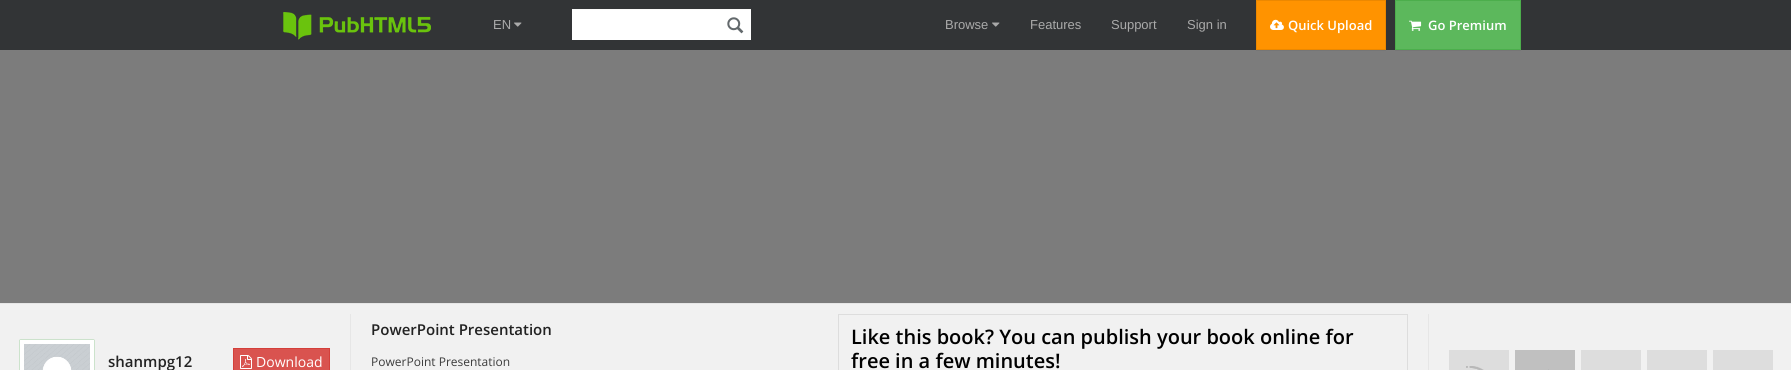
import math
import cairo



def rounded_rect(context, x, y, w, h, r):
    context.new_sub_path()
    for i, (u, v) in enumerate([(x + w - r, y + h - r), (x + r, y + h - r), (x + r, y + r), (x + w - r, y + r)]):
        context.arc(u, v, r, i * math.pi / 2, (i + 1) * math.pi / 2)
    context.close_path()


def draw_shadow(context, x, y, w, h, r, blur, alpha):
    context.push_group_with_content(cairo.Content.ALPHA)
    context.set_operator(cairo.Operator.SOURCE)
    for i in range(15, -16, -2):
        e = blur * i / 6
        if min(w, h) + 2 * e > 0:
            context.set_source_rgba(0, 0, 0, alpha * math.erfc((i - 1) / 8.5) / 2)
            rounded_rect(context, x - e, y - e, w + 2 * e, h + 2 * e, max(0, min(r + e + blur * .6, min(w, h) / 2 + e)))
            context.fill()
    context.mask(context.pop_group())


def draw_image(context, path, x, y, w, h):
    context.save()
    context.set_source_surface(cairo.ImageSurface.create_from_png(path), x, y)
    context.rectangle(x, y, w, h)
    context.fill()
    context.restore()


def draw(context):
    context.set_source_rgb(124 / 255, 124 / 255, 124 / 255)
    context.paint()
    context.set_source_rgb(50 / 255, 52 / 255, 54 / 255)
    context.rectangle(0, 0, 1791, 50)
    context.fill()
    draw_image(context, "images/1.png", 283, 12, 148, 28)
    draw_image(context, "images/2.png", 514, 22, 8, 5)
    context.set_source_rgb(1, 1, 1)
    context.rectangle(572, 10, 179, 30)
    context.fill()
    context.set_source_rgb(249 / 255, 249 / 255, 249 / 255)
    context.rectangle(572, 9, 179, 1)
    context.fill()
    draw_image(context, "images/3.png", 727, 17, 17, 17)
    draw_image(context, "images/4.png", 992, 22, 8, 5)
    context.set_source_rgb(118 / 255, 118 / 255, 118 / 255)
    context.rectangle(1256, 50, 130, 1)
    context.fill()
    context.set_source_rgb(1, 147 / 255, 0)
    context.rectangle(1256.5, 0.5, 129, 49)
    context.fill_preserve()
    context.set_source_rgb(236 / 255, 136 / 255, 0)
    context.set_line_width(1)
    context.stroke()
    draw_image(context, "images/5.png", 1270, 19, 14, 11)
    context.set_source_rgb(118 / 255, 118 / 255, 118 / 255)
    context.rectangle(1395, 50, 126, 1)
    context.fill()
    context.set_source_rgb(92 / 255, 184 / 255, 92 / 255)
    context.rectangle(1395.5, 0.5, 125, 49)
    context.fill_preserve()
    context.set_source_rgb(76 / 255, 174 / 255, 76 / 255)
    context.stroke()
    draw_image(context, "images/6.png", 1409, 20, 13, 11)
    context.set_source_rgb(241 / 255, 241 / 255, 241 / 255)
    context.rectangle(0, 304, 1791, 66)
    context.fill()
    context.set_source_rgb(230 / 255, 230 / 255, 230 / 255)
    context.rectangle(0, 303, 1791, 1)
    context.fill()
    context.set_source_rgb(92 / 255, 184 / 255, 92 / 255)
    draw_shadow(context, 20, 340, 74, 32, 0, 0.5, 1)
    context.rectangle(22, 342, 70, 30)
    context.set_source_rgb(1, 1, 1)
    context.set_line_width(4)
    context.stroke()
    draw_image(context, "images/7.png", 24, 344, 66, 26)
    context.set_source_rgb(217 / 255, 83 / 255, 79 / 255)
    context.rectangle(233.5, 348.5, 96, 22)
    context.fill_preserve()
    context.set_source_rgb(212 / 255, 63 / 255, 58 / 255)
    context.set_line_width(1)
    context.stroke()
    draw_image(context, "images/8.png", 240, 355, 12, 14)
    context.set_source_rgb(230 / 255, 230 / 255, 230 / 255)
    context.rectangle(1428, 314, 1, 56)
    context.fill()
    context.rectangle(350, 314, 1, 56)
    context.fill()
    context.rectangle(838.5, 314.5, 569, 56)
    context.set_source_rgb(221 / 255, 221 / 255, 221 / 255)
    context.stroke()
    context.rectangle(1449, 350, 60, 20)
    context.fill()
    draw_image(context, "images/9.png", 1466, 366, 18, 4)
    context.set_source_rgb(192 / 255, 192 / 255, 192 / 255)
    context.rectangle(1515, 350, 60, 20)
    context.fill()
    context.set_source_rgb(185 / 255, 185 / 255, 186 / 255)
    context.rectangle(1548, 369, 1, 1)
    context.fill()
    context.set_source_rgb(221 / 255, 221 / 255, 221 / 255)
    context.rectangle(1581, 350, 60, 20)
    context.fill()
    context.rectangle(1647, 350, 60, 20)
    context.fill()
    context.rectangle(1713, 350, 60, 20)
    context.fill()
    context.select_font_face("Liberation Sans")
    context.set_font_size(13)
    context.set_source_rgb(170 / 255, 170 / 255, 170 / 255)
    context.move_to(493, 29)
    context.show_text("EN")
    context.move_to(945, 29)
    context.show_text("Browse")
    context.move_to(1030, 29)
    context.show_text("Features")
    context.move_to(1111, 29)
    context.show_text("Support")
    context.move_to(1187, 29)
    context.show_text("Sign in")
    context.select_font_face("Open Sans SemiBold")
    context.set_source_rgb(1, 1, 1)
    context.move_to(1288, 30)
    context.show_text("Quick Upload")
    context.move_to(1428, 30)
    context.show_text("Go Premium")
    context.set_font_size(15)
    context.set_source_rgb(34 / 255, 34 / 255, 34 / 255)
    context.move_to(108, 367)
    context.show_text("shanmpg12")
    context.select_font_face("Open Sans")
    context.set_font_size(14)
    context.set_source_rgb(1, 1, 1)
    context.move_to(256, 367)
    context.show_text("Download")
    context.select_font_face("Open Sans SemiBold")
    context.set_font_size(15)
    context.set_source_rgb(34 / 255, 34 / 255, 34 / 255)
    context.move_to(371, 335)
    context.show_text("PowerPoint Presentation")
    context.select_font_face("Open Sans")
    context.set_font_size(12)
    context.set_source_rgb(60 / 255, 60 / 255, 60 / 255)
    context.move_to(371, 366)
    context.show_text("PowerPoint Presentation")
    context.select_font_face("Open Sans SemiBold")
    context.set_font_size(20)
    context.set_source_rgb(0, 0, 0)
    context.move_to(851, 344)
    context.show_text("Like this book? You can publish your book online for")
    context.move_to(851, 368)
    context.show_text("free in a few minutes!")


surface = cairo.ImageSurface(cairo.Format.RGB24, 1791, 370)
context = cairo.Context(surface)
options = cairo.FontOptions()
options.set_hint_metrics(cairo.HintMetrics.OFF)
options.set_hint_style(cairo.HintStyle.NONE)
context.set_font_options(options)
context.set_miter_limit(4)
draw(context)
surface.write_to_png("out.png")
